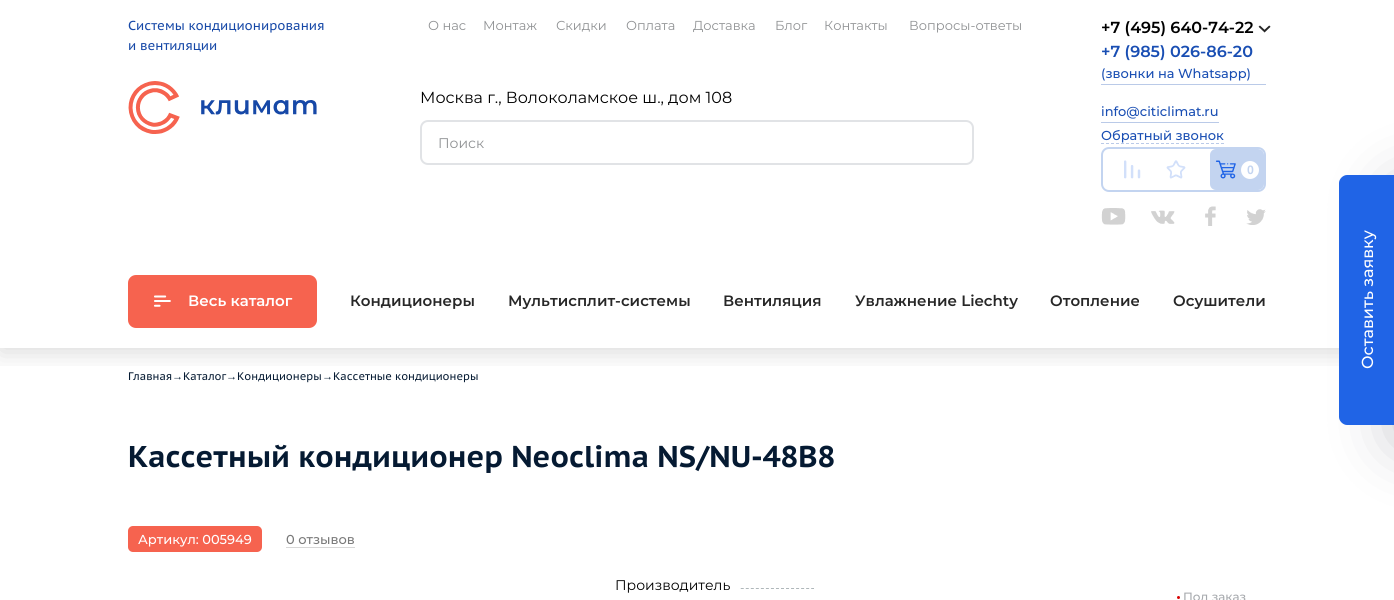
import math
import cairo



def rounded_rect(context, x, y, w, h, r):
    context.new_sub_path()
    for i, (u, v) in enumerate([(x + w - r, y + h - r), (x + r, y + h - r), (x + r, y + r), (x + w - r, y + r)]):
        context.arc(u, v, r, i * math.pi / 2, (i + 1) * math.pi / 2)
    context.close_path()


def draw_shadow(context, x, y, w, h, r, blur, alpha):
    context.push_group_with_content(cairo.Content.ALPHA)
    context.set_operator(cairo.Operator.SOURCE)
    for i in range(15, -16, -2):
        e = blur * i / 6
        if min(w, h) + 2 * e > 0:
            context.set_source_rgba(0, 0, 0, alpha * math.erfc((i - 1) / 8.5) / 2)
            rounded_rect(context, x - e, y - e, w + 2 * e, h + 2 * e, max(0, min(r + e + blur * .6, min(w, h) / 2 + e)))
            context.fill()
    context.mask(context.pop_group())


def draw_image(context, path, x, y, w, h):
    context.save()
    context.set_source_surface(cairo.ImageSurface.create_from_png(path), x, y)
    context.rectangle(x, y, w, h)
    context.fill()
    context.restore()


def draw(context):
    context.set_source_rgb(1, 1, 1)
    context.paint()
    context.save()
    context.rectangle(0, 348, 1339, 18)
    context.clip()
    context.set_source_rgb(0, 0, 0)
    draw_shadow(context, 0, 4, 1394, 348, 0, 13, 0.15)
    context.restore()
    draw_image(context, "images/1.png", 128, 81, 189, 53)
    rounded_rect(context, 421, 121, 552, 43, 7)
    context.set_source_rgb(225 / 255, 227 / 255, 230 / 255)
    context.stroke()
    draw_image(context, "images/2.png", 1258, 25, 13, 8)
    context.set_source_rgb(186 / 255, 202 / 255, 232 / 255)
    context.rectangle(1101, 84, 165, 1)
    context.fill()
    context.rectangle(1101, 122, 118, 1)
    context.fill()
    context.new_path()
    context.move_to(1101, 143.5)
    context.line_to(1224, 143.5)
    context.set_line_width(1)
    context.set_dash([3, 2])
    context.stroke()
    rounded_rect(context, 1102, 148, 163, 43, 7)
    context.set_source_rgb(195 / 255, 212 / 255, 240 / 255)
    context.set_line_width(2)
    context.set_dash([])
    context.stroke()
    draw_image(context, "images/3.png", 1124, 160, 17, 19)
    draw_image(context, "images/4.png", 1166, 160, 20, 19)
    rounded_rect(context, 1210, 149, 54, 41, 6)
    context.fill()
    draw_image(context, "images/5.png", 1215, 160, 21, 19)
    context.set_source_rgb(1, 1, 1)
    context.arc(1250, 170, 9, 0, 2 * math.pi)
    context.fill()
    draw_image(context, "images/6.png", 1101, 208, 25, 17)
    draw_image(context, "images/7.png", 1151, 210, 24, 14)
    draw_image(context, "images/8.png", 1205, 206, 11, 20)
    draw_image(context, "images/9.png", 1246, 209, 20, 16)
    context.set_source_rgb(246 / 255, 99 / 255, 79 / 255)
    rounded_rect(context, 128, 275, 189, 53, 8)
    context.fill()
    draw_image(context, "images/10.png", 154, 295, 17, 12)
    context.set_source_rgb(192 / 255, 192 / 255, 199 / 255)
    draw_shadow(context, 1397, 190, 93, 250, 0, 32, 1)
    context.set_source_rgb(32 / 255, 100 / 255, 230 / 255)
    context.new_path()
    context.move_to(1339, 417)
    context.line_to(1339, 183)
    context.curve_to(1339, 179, 1343, 175, 1347, 175)
    context.line_to(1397, 175)
    context.line_to(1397, 425)
    context.line_to(1347, 425)
    context.curve_to(1343, 425, 1339, 421, 1339, 417)
    context.close_path()
    context.fill()
    context.set_source_rgb(246 / 255, 99 / 255, 79 / 255)
    rounded_rect(context, 128, 526, 134, 26, 5)
    context.fill()
    context.set_source_rgb(215 / 255, 215 / 255, 215 / 255)
    context.rectangle(286, 547, 69, 1)
    context.fill()
    context.new_path()
    context.move_to(615, 588.5)
    context.line_to(814, 588.5)
    context.set_source_rgb(175 / 255, 183 / 255, 186 / 255)
    context.set_line_width(1)
    context.set_dash([3, 2.03])
    context.stroke()
    context.set_source_rgb(1, 1, 1)
    context.rectangle(615, 588, 124, 1)
    context.fill()
    context.set_source_rgb(217 / 255, 3 / 255, 3 / 255)
    context.arc(1178.5, 597.5, 1.5, 0, 2 * math.pi)
    context.fill()
    context.select_font_face("PT Sans Caption")
    context.set_font_size(13)
    context.set_source_rgb(22 / 255, 72 / 255, 167 / 255)
    context.move_to(128, 30)
    context.show_text("Системы кондиционирования")
    context.move_to(128, 50)
    context.show_text("и вентиляции")
    context.select_font_face("Montserrat")
    context.set_source_rgb(143 / 255, 145 / 255, 147 / 255)
    context.move_to(428, 30)
    context.show_text("О нас")
    context.move_to(483, 30)
    context.show_text("Монтаж")
    context.move_to(556, 30)
    context.show_text("Скидки")
    context.move_to(626, 30)
    context.show_text("Оплата")
    context.move_to(693, 30)
    context.show_text("Доставка")
    context.move_to(775, 30)
    context.show_text("Блог")
    context.move_to(824, 30)
    context.show_text("Контакты")
    context.move_to(909, 30)
    context.show_text("Вопросы-ответы")
    context.set_font_size(16)
    context.set_source_rgb(0, 0, 0)
    context.move_to(420, 103)
    context.show_text("Москва г., Волоколамское ш., дом 108")
    context.set_font_size(14)
    context.set_source_rgb(143 / 255, 145 / 255, 147 / 255)
    context.move_to(438, 148)
    context.show_text("Поиск")
    context.select_font_face("Montserrat SemiBold")
    context.set_font_size(16)
    context.set_source_rgb(0, 0, 0)
    context.move_to(1101, 33)
    context.show_text("+7 (495) 640-74-22")
    context.set_source_rgb(25 / 255, 78 / 255, 179 / 255)
    context.move_to(1101, 57)
    context.show_text("+7 (985) 026-86-20")
    context.select_font_face("Montserrat Medium")
    context.set_font_size(13)
    context.move_to(1101, 78)
    context.show_text("(звонки на Whatsapp)")
    context.move_to(1101, 116)
    context.show_text("info@citiclimat.ru")
    context.move_to(1101, 140)
    context.show_text("Обратный звонок")
    context.select_font_face("PT Sans", cairo.FontSlant.NORMAL, cairo.FontWeight.BOLD)
    context.set_font_size(12)
    context.set_source_rgb(195 / 255, 212 / 255, 240 / 255)
    context.move_to(1247, 174)
    context.show_text("0")
    context.select_font_face("Montserrat SemiBold")
    context.set_font_size(15)
    context.set_source_rgb(1, 1, 1)
    context.move_to(188, 306)
    context.show_text("Весь каталог")
    context.set_source_rgb(39 / 255, 39 / 255, 39 / 255)
    context.move_to(350, 306)
    context.show_text("Кондиционеры")
    context.move_to(508, 306)
    context.show_text("Мультисплит-системы")
    context.move_to(723, 306)
    context.show_text("Вентиляция")
    context.move_to(855, 306)
    context.show_text("Увлажнение Liechty")
    context.move_to(1050, 306)
    context.show_text("Отопление")
    context.move_to(1173, 306)
    context.show_text("Осушители")
    context.select_font_face("Montserrat Medium")
    context.set_font_size(16)
    context.set_source_rgb(1, 1, 1)
    context.save()
    context.translate(1373, 369)
    context.rotate(-90 * math.pi / 180)
    context.move_to(0, 0)
    context.show_text("Оставить заявку")
    context.restore()
    context.select_font_face("PT Sans Caption")
    context.set_font_size(11)
    context.set_source_rgb(5 / 255, 26 / 255, 50 / 255)
    context.move_to(128, 380)
    context.show_text("Главная")
    context.select_font_face("Liberation Sans")
    context.move_to(172, 380)
    context.show_text("→")
    context.select_font_face("PT Sans Caption")
    context.move_to(183, 380)
    context.show_text("Каталог")
    context.select_font_face("Liberation Sans")
    context.move_to(226, 380)
    context.show_text("→")
    context.select_font_face("PT Sans Caption")
    context.move_to(237, 380)
    context.show_text("Кондиционеры")
    context.select_font_face("Liberation Sans")
    context.move_to(322, 380)
    context.show_text("→")
    context.select_font_face("PT Sans Caption")
    context.move_to(333, 380)
    context.show_text("Кассетные кондиционеры")
    context.select_font_face("PT Sans Caption", cairo.FontSlant.NORMAL, cairo.FontWeight.BOLD)
    context.set_font_size(30)
    context.move_to(128, 467)
    context.show_text("Кассетный кондиционер Neoclima NS/NU-48B8")
    context.select_font_face("Montserrat Medium")
    context.set_font_size(13)
    context.set_source_rgb(1, 1, 1)
    context.move_to(138, 544)
    context.show_text("Артикул: 005949")
    context.set_source_rgb(121 / 255, 121 / 255, 121 / 255)
    context.move_to(286, 544)
    context.show_text("0 отзывов")
    context.select_font_face("Montserrat")
    context.set_font_size(14)
    context.set_source_rgb(0, 0, 0)
    context.move_to(615, 590)
    context.show_text("Производитель")
    context.select_font_face("Montserrat Medium")
    context.set_font_size(12)
    context.set_source_rgb(166 / 255, 169 / 255, 173 / 255)
    context.move_to(1183, 601)
    context.show_text("Под заказ")


surface = cairo.ImageSurface(cairo.Format.RGB24, 1394, 600)
context = cairo.Context(surface)
options = cairo.FontOptions()
options.set_hint_metrics(cairo.HintMetrics.OFF)
options.set_hint_style(cairo.HintStyle.NONE)
context.set_font_options(options)
context.set_miter_limit(4)
draw(context)
surface.write_to_png("out.png")
